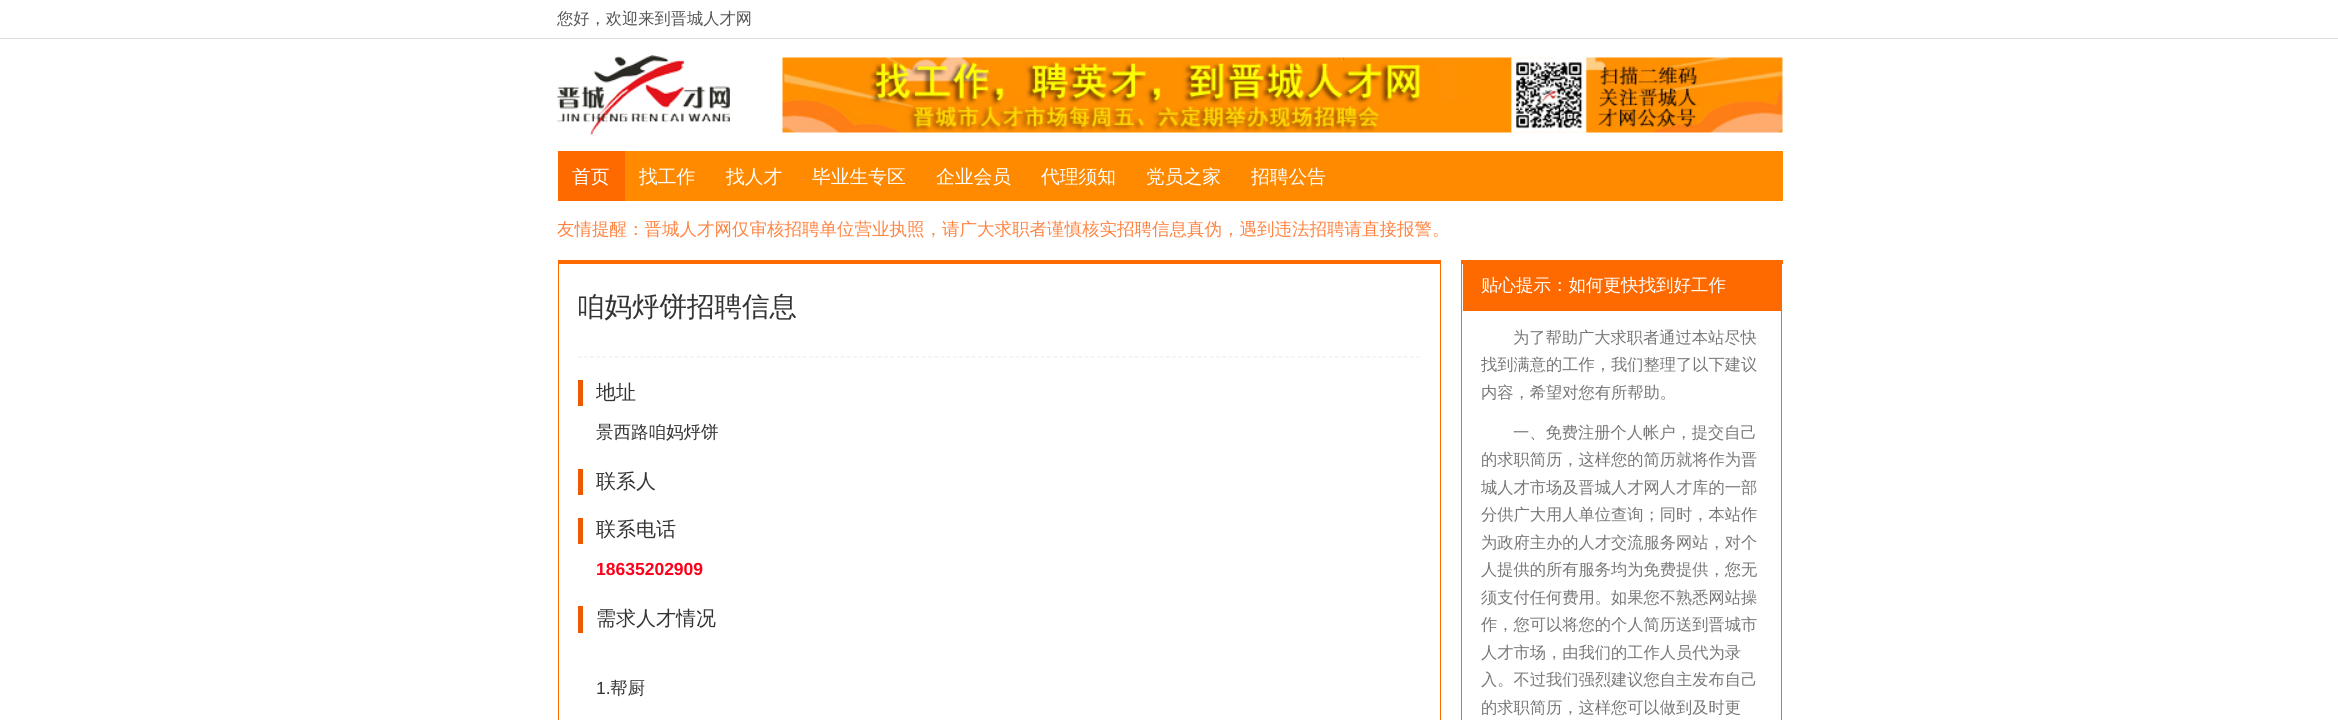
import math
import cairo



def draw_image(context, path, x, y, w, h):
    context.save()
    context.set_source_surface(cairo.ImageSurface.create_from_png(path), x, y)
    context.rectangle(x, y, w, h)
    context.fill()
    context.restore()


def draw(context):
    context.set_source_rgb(1, 1, 1)
    context.paint()
    context.set_source_rgb(223 / 255, 223 / 255, 223 / 255)
    context.rectangle(0, 38, 2338, 1)
    context.fill()
    draw_image(context, "images/1.png", 557, 55, 173, 80)
    draw_image(context, "images/2.png", 782, 57, 1001, 76)
    context.set_source_rgb(1, 138 / 255, 0)
    context.rectangle(625, 151, 1158, 50)
    context.fill()
    context.set_source_rgb(254 / 255, 106 / 255, 0)
    context.rectangle(558, 151, 67, 50)
    context.fill()
    context.rectangle(558, 260, 883, 4)
    context.fill()
    context.rectangle(1440, 260, 1, 460)
    context.fill()
    context.rectangle(558, 260, 1, 460)
    context.fill()
    context.new_path()
    context.move_to(577.5, 357)
    context.line_to(1421, 357)
    context.set_source_rgb(238 / 255, 238 / 255, 238 / 255)
    context.set_line_width(1.2)
    context.set_dash([3.75, 2.51])
    context.stroke()
    context.set_source_rgb(236 / 255, 89 / 255, 0)
    context.rectangle(578, 380, 5, 26)
    context.fill()
    context.rectangle(578, 469, 5, 26)
    context.fill()
    context.rectangle(578, 518, 5, 26)
    context.fill()
    context.rectangle(578, 606, 5, 27)
    context.fill()
    context.set_source_rgb(254 / 255, 106 / 255, 0)
    context.rectangle(1461, 260, 322, 4)
    context.fill()
    context.rectangle(1781, 260, 1, 460)
    context.fill()
    context.rectangle(1461, 260, 1, 460)
    context.fill()
    context.rectangle(1463, 264, 318, 47)
    context.fill()
    context.select_font_face("WenQuanYi Zen Hei Medium")
    context.set_font_size(16.25)
    context.set_source_rgb(85 / 255, 85 / 255, 85 / 255)
    context.move_to(557, 24)
    context.show_text("您好，欢迎来到晋城人才网")
    context.set_font_size(18.75)
    context.set_source_rgb(1, 1, 1)
    context.move_to(572, 183)
    context.show_text("首页")
    context.move_to(639, 183)
    context.show_text("找工作")
    context.move_to(726, 183)
    context.show_text("找人才")
    context.move_to(812, 183)
    context.show_text("毕业生专区")
    context.move_to(936, 183)
    context.show_text("企业会员")
    context.move_to(1041, 183)
    context.show_text("代理须知")
    context.move_to(1146, 183)
    context.show_text("党员之家")
    context.move_to(1251, 183)
    context.show_text("招聘公告")
    context.set_font_size(17.5)
    context.set_source_rgb(1, 132 / 255, 66 / 255)
    context.move_to(557, 235)
    context.show_text("友情提醒：晋城人才网仅审核招聘单位营业执照，请广大求职者谨慎核实招聘信息真伪，遇到违法招聘请直接报警。")
    context.set_font_size(27.5)
    context.set_source_rgb(51 / 255, 51 / 255, 51 / 255)
    context.move_to(577, 316)
    context.show_text("咱妈烀饼招聘信息")
    context.set_font_size(20)
    context.move_to(596, 399)
    context.show_text("地址")
    context.set_font_size(17.5)
    context.move_to(596, 438)
    context.show_text("景西路咱妈烀饼")
    context.set_font_size(20)
    context.move_to(596, 488)
    context.show_text("联系人")
    context.move_to(596, 536)
    context.show_text("联系电话")
    context.select_font_face("Liberation Sans", cairo.FontSlant.NORMAL, cairo.FontWeight.BOLD)
    context.set_font_size(17.5)
    context.set_source_rgb(1, 0, 26 / 255)
    context.move_to(596, 575)
    context.show_text("18635202909")
    context.select_font_face("WenQuanYi Zen Hei Medium")
    context.set_font_size(20)
    context.set_source_rgb(51 / 255, 51 / 255, 51 / 255)
    context.move_to(596, 625)
    context.show_text("需求人才情况")
    context.select_font_face("Liberation Sans")
    context.set_font_size(17.5)
    context.move_to(596, 694)
    context.show_text("1.")
    context.select_font_face("WenQuanYi Zen Hei Medium")
    context.move_to(610, 694)
    context.show_text("帮厨")
    context.set_source_rgb(1, 1, 1)
    context.move_to(1481, 291)
    context.show_text("贴心提示：如何更快找到好工作")
    context.set_font_size(16.25)
    context.set_source_rgb(119 / 255, 119 / 255, 119 / 255)
    context.move_to(1513, 343)
    context.show_text("为了帮助广大求职者通过本站尽快")
    context.move_to(1481, 370)
    context.show_text("找到满意的工作，我们整理了以下建议")
    context.move_to(1481, 398)
    context.show_text("内容，希望对您有所帮助。")
    context.move_to(1513, 438)
    context.show_text("一、免费注册个人帐户，提交自己")
    context.move_to(1481, 465)
    context.show_text("的求职简历，这样您的简历就将作为晋")
    context.move_to(1481, 493)
    context.show_text("城人才市场及晋城人才网人才库的一部")
    context.move_to(1481, 520)
    context.show_text("分供广大用人单位查询；同时，本站作")
    context.move_to(1481, 548)
    context.show_text("为政府主办的人才交流服务网站，对个")
    context.move_to(1481, 575)
    context.show_text("人提供的所有服务均为免费提供，您无")
    context.move_to(1481, 603)
    context.show_text("须支付任何费用。如果您不熟悉网站操")
    context.move_to(1481, 630)
    context.show_text("作，您可以将您的个人简历送到晋城市")
    context.move_to(1481, 658)
    context.show_text("人才市场，由我们的工作人员代为录")
    context.move_to(1481, 685)
    context.show_text("入。不过我们强烈建议您自主发布自己")
    context.move_to(1481, 713)
    context.show_text("的求职简历，这样您可以做到及时更")


surface = cairo.ImageSurface(cairo.Format.RGB24, 2338, 720)
context = cairo.Context(surface)
options = cairo.FontOptions()
options.set_hint_metrics(cairo.HintMetrics.OFF)
options.set_hint_style(cairo.HintStyle.NONE)
context.set_font_options(options)
context.set_miter_limit(4)
draw(context)
surface.write_to_png("out.png")
